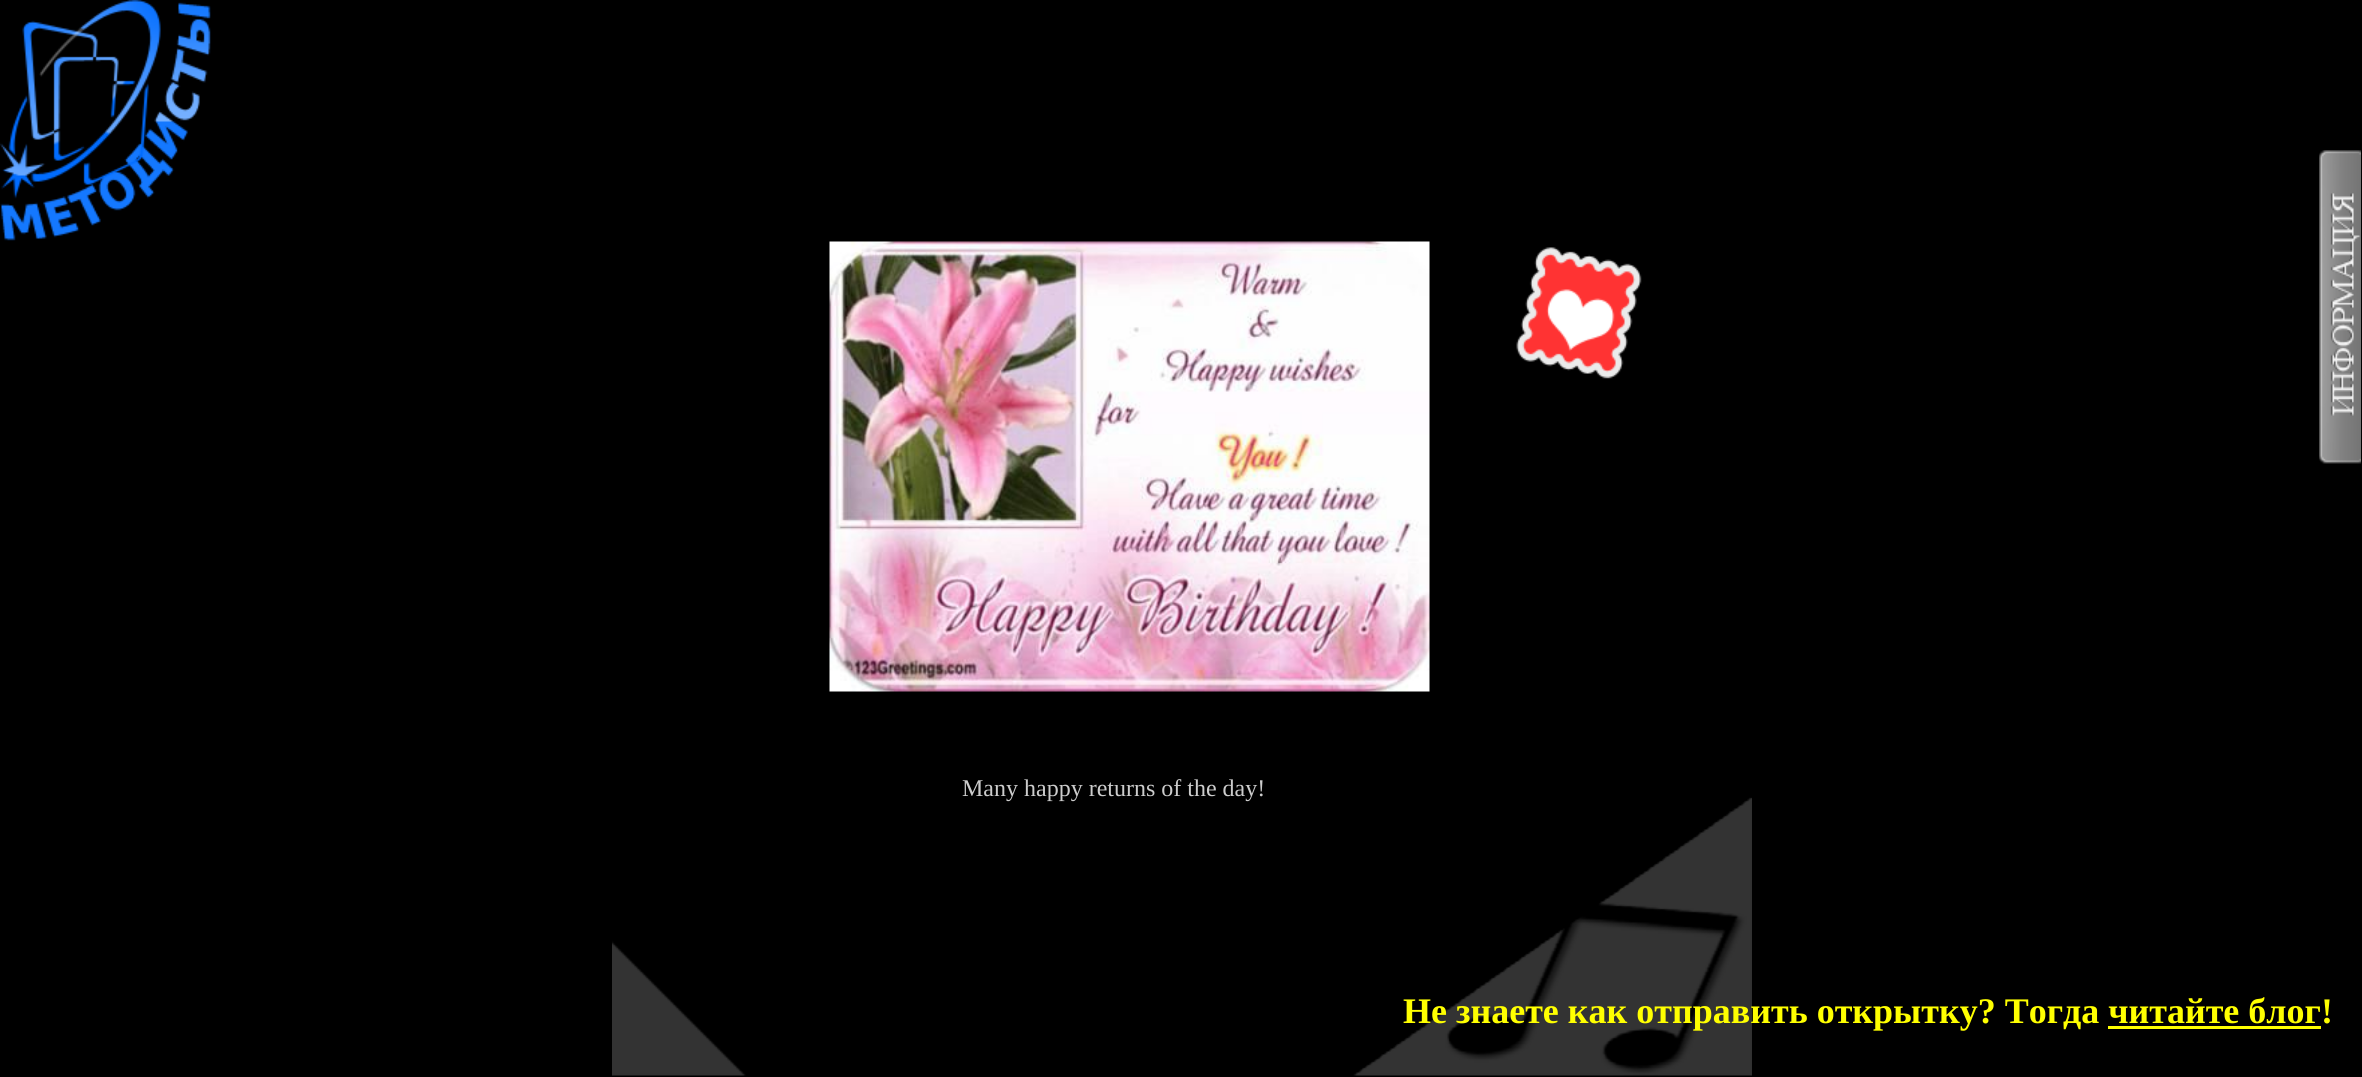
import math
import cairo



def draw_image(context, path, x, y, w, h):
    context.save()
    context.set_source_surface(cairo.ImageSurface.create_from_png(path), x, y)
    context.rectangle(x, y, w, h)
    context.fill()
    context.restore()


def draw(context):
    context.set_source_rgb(0, 0, 0)
    context.paint()
    draw_image(context, "images/1.png", 0, 0, 211, 241)
    draw_image(context, "images/2.png", 2319, 150, 42, 314)
    draw_image(context, "images/3.png", 612, 797, 1140, 279)
    draw_image(context, "images/4.png", 1516, 247, 126, 132)
    draw_image(context, "images/5.png", 829, 241, 601, 451)
    context.set_source_rgb(1, 1, 0)
    context.rectangle(2108, 1026, 213, 3)
    context.fill()
    context.select_font_face("Liberation Serif")
    context.set_font_size(24)
    context.set_source_rgb(204 / 255, 204 / 255, 204 / 255)
    context.move_to(962, 796)
    context.show_text("Many happy returns of the day!")
    context.select_font_face("Liberation Serif", cairo.FontSlant.NORMAL, cairo.FontWeight.BOLD)
    context.set_font_size(36)
    context.set_source_rgb(1, 1, 0)
    context.move_to(1403, 1023)
    context.show_text("Не знаете как отправить открытку? Тогда читайте блог!")


surface = cairo.ImageSurface(cairo.Format.RGB24, 2362, 1077)
context = cairo.Context(surface)
options = cairo.FontOptions()
options.set_hint_metrics(cairo.HintMetrics.OFF)
options.set_hint_style(cairo.HintStyle.NONE)
context.set_font_options(options)
context.set_miter_limit(4)
draw(context)
surface.write_to_png("out.png")
